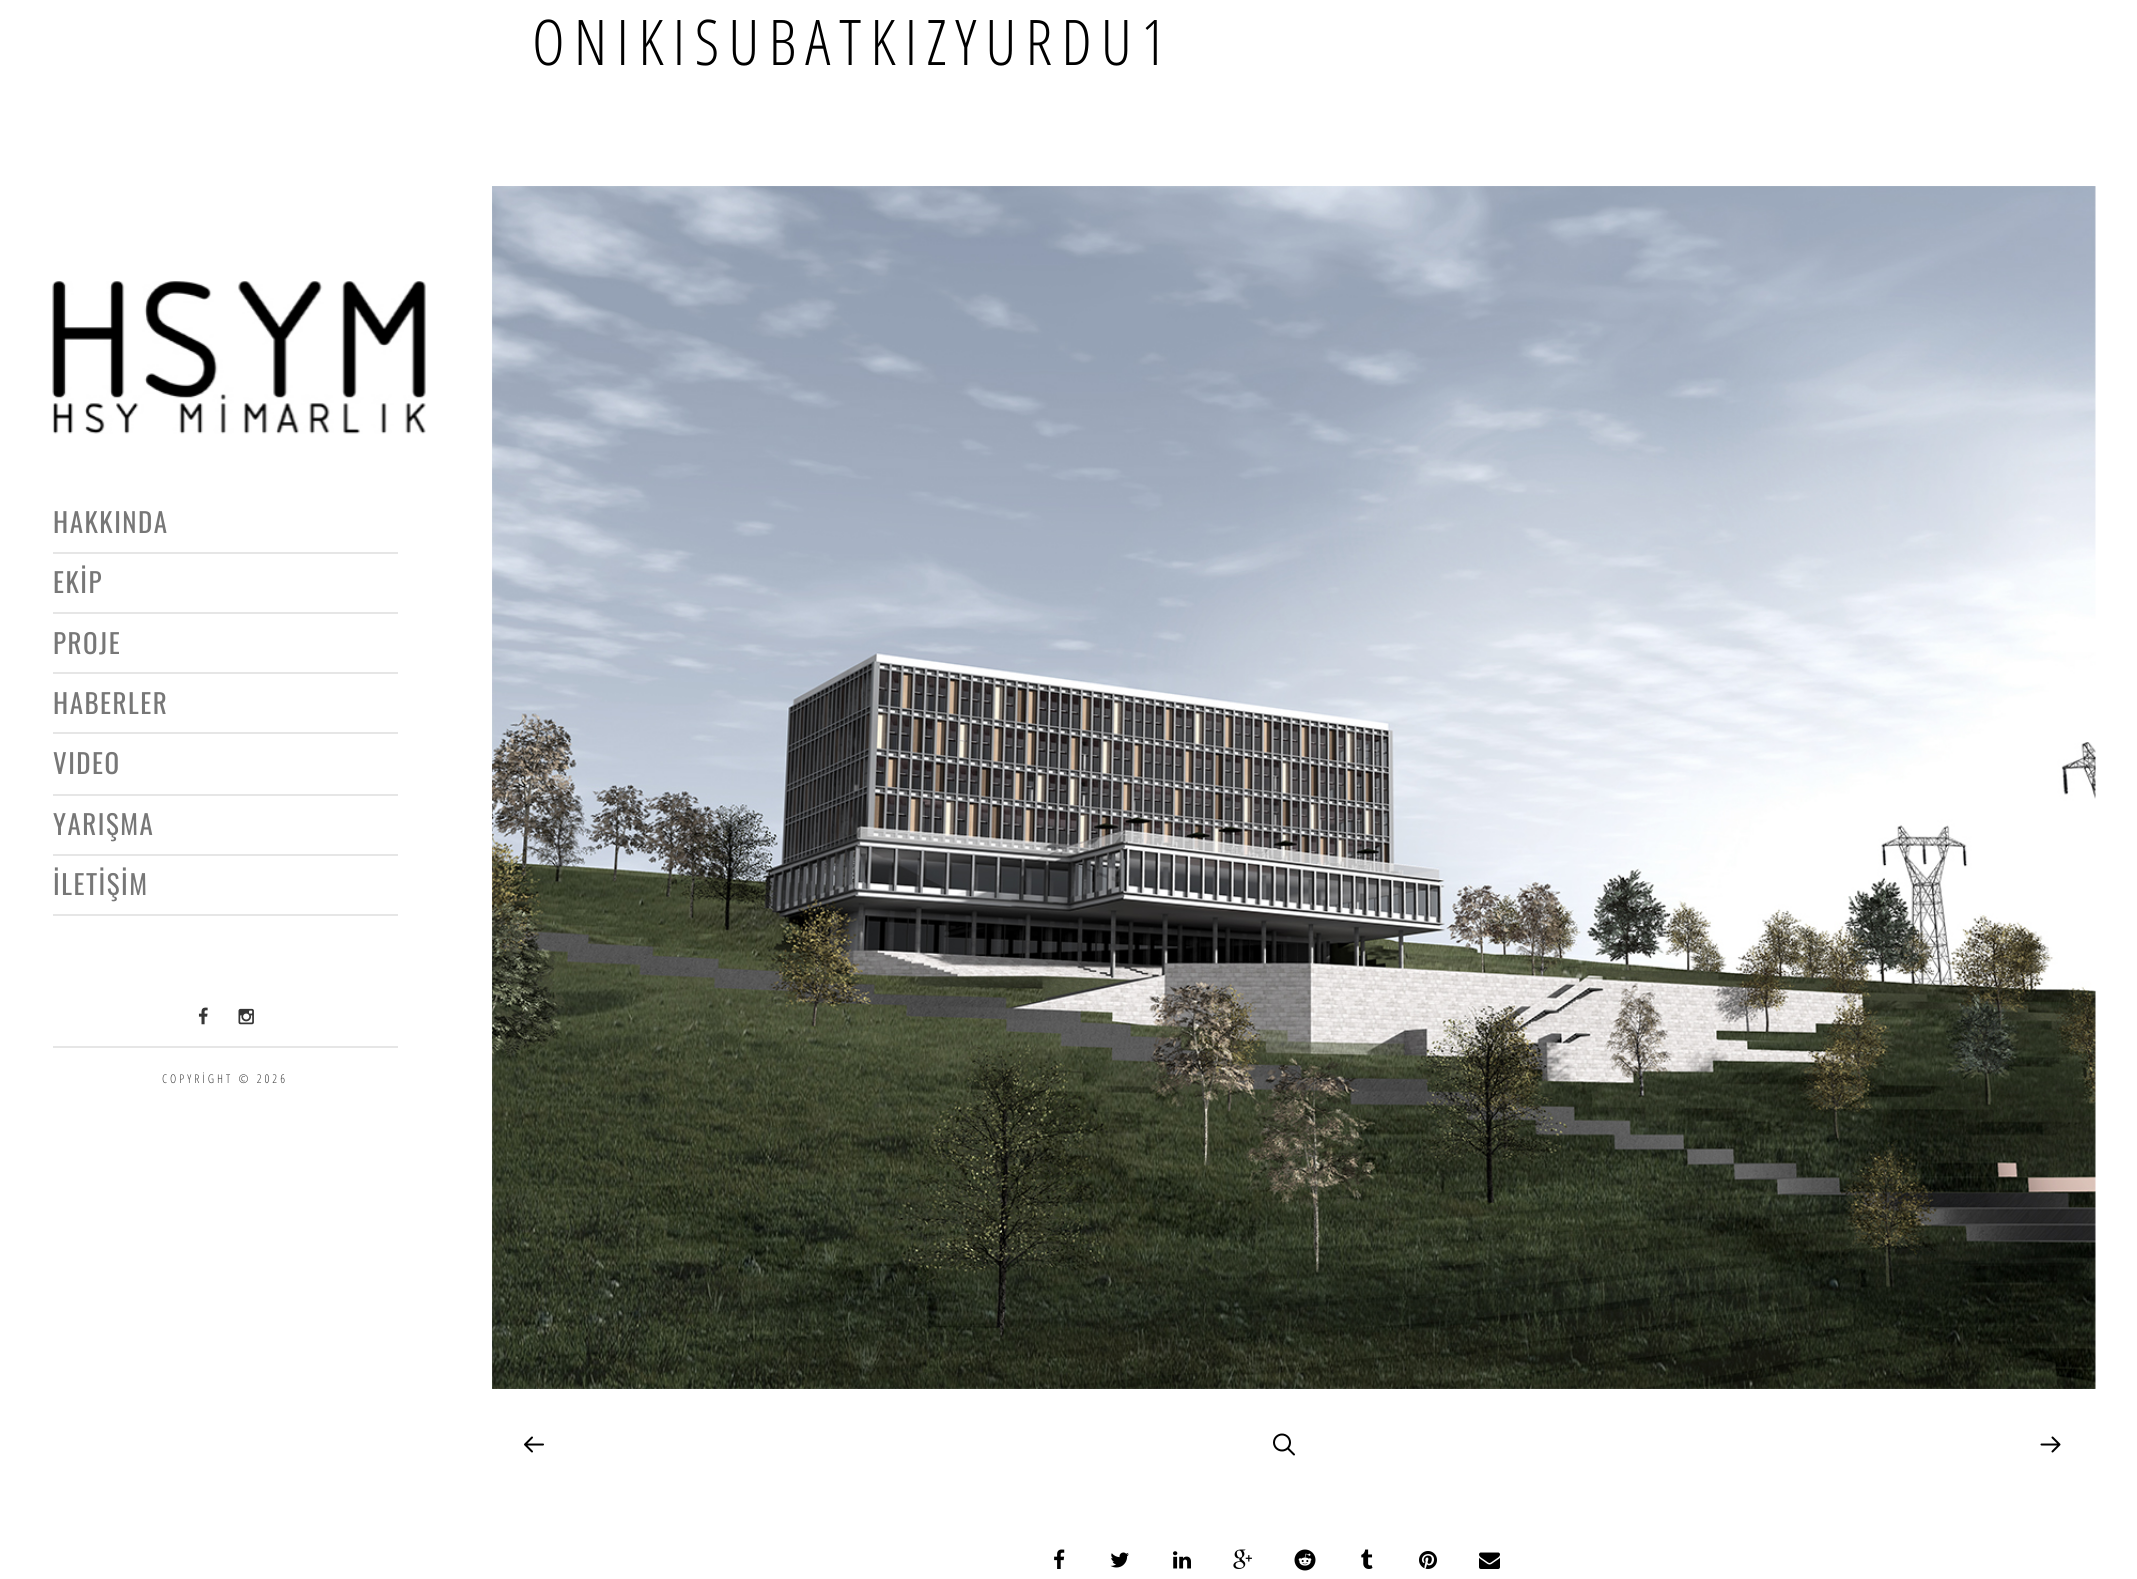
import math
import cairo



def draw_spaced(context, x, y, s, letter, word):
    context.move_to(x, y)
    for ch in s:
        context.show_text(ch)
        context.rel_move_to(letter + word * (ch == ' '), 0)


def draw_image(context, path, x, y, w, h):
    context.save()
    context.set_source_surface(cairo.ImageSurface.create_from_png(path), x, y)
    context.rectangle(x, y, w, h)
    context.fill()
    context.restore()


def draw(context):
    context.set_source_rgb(1, 1, 1)
    context.paint()
    draw_image(context, "images/1.png", 492, 186, 1604, 1203)
    draw_image(context, "images/2.png", 524, 1436, 20, 17)
    draw_image(context, "images/3.png", 1273, 1433, 22, 23)
    draw_image(context, "images/4.png", 2040, 1436, 21, 17)
    draw_image(context, "images/5.png", 1054, 1549, 11, 20)
    draw_image(context, "images/6.png", 1110, 1552, 19, 16)
    draw_image(context, "images/7.png", 1173, 1551, 18, 18)
    draw_image(context, "images/8.png", 1233, 1549, 19, 20)
    draw_image(context, "images/9.png", 1294, 1549, 22, 22)
    draw_image(context, "images/10.png", 1361, 1549, 12, 20)
    draw_image(context, "images/11.png", 1419, 1551, 18, 18)
    draw_image(context, "images/12.png", 1479, 1552, 21, 17)
    draw_image(context, "images/13.png", 52, 281, 374, 153)
    context.set_source_rgb(230 / 255, 230 / 255, 230 / 255)
    context.rectangle(53, 552, 345, 2)
    context.fill()
    context.rectangle(53, 612, 345, 2)
    context.fill()
    context.rectangle(53, 672, 345, 2)
    context.fill()
    context.rectangle(53, 732, 345, 2)
    context.fill()
    context.rectangle(53, 794, 345, 2)
    context.fill()
    context.rectangle(53, 854, 345, 2)
    context.fill()
    context.rectangle(53, 914, 345, 2)
    context.fill()
    draw_image(context, "images/14.png", 198, 1007, 10, 18)
    draw_image(context, "images/15.png", 238, 1008, 16, 17)
    context.rectangle(53, 1046, 345, 2)
    context.fill()
    context.select_font_face("Open Sans Condensed Light")
    context.set_font_size(63)
    context.set_source_rgb(0, 0, 0)
    draw_spaced(context, 532, 65, "ONIKISUBATKIZYURDU1", 9, 0)
    context.select_font_face("Oswald")
    context.set_font_size(27)
    context.set_source_rgb(119 / 255, 119 / 255, 119 / 255)
    draw_spaced(context, 53, 533, "HAKKINDA", 1.5, 0)
    draw_spaced(context, 53, 593, "EKİP", 1.5, 0)
    draw_spaced(context, 53, 654, "PROJE", 1.5, 0)
    draw_spaced(context, 53, 714, "HABERLER", 1.5, 0)
    draw_spaced(context, 53, 774, "VIDEO", 1.5, 0)
    draw_spaced(context, 53, 835, "YARIŞMA", 1.5, 0)
    draw_spaced(context, 53, 895, "İLETİŞİM", 1.5, 0)
    context.select_font_face("Open Sans Condensed Light")
    context.set_font_size(12)
    context.set_source_rgb(54 / 255, 54 / 255, 54 / 255)
    draw_spaced(context, 162, 1083, "COPYRİGHT © 2026", 3, 0)


surface = cairo.ImageSurface(cairo.Format.RGB24, 2137, 1579)
context = cairo.Context(surface)
options = cairo.FontOptions()
options.set_hint_metrics(cairo.HintMetrics.OFF)
options.set_hint_style(cairo.HintStyle.NONE)
context.set_font_options(options)
context.set_miter_limit(4)
draw(context)
surface.write_to_png("out.png")
